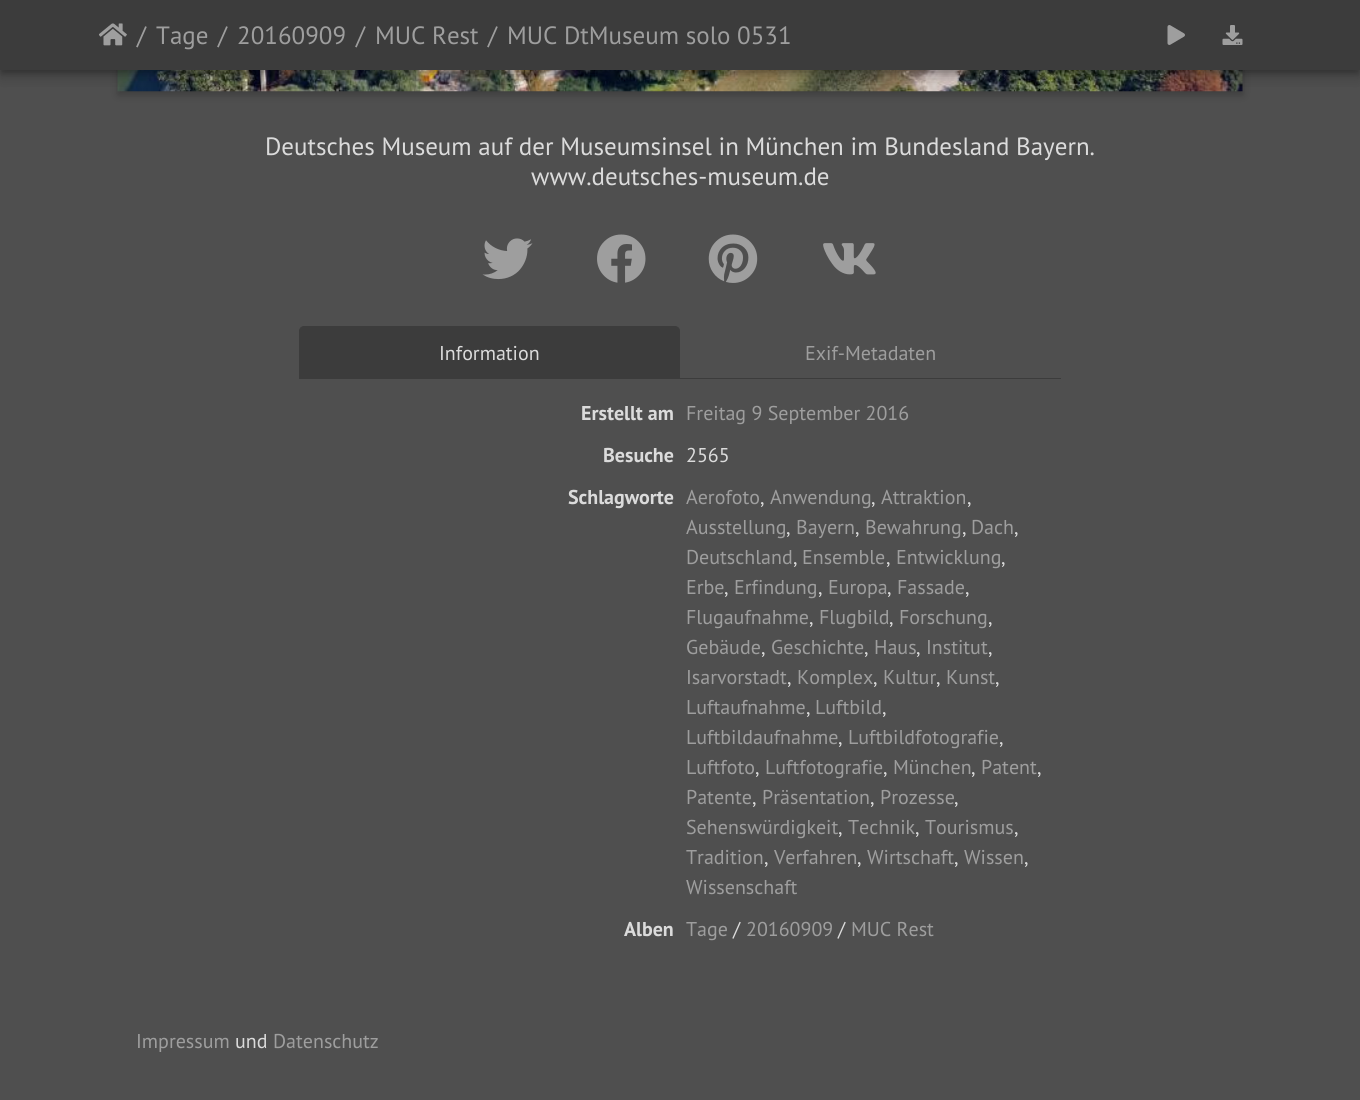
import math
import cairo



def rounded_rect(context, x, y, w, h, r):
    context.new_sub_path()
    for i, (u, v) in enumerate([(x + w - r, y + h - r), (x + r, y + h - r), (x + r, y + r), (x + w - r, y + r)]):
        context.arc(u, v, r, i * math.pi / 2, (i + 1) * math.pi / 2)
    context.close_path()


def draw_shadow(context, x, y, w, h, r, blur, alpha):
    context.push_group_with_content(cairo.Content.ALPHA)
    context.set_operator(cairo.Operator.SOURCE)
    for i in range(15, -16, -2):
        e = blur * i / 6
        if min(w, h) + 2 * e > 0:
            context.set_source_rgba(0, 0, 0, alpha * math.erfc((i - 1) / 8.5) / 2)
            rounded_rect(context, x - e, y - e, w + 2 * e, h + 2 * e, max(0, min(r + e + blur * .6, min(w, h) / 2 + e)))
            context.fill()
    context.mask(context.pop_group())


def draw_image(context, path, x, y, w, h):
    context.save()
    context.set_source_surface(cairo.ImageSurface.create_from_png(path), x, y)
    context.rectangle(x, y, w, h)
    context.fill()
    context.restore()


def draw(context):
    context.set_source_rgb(79 / 255, 79 / 255, 79 / 255)
    context.paint()
    context.set_source_rgb(0, 0, 0)
    draw_shadow(context, 118, -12, 1125, 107, 0, 4, 0.23)
    draw_image(context, "images/4.png", 117, 70, 1126, 22)
    draw_shadow(context, 1, 5, 1358, 68, 0, 3, 0.2)
    draw_shadow(context, 0, 1, 1360, 70, 0, 11, 0.12)
    draw_shadow(context, 0, 8, 1360, 70, 0, 6, 0.14)
    context.set_source_rgb(60 / 255, 60 / 255, 60 / 255)
    context.rectangle(0, 0, 1360, 70)
    context.fill()
    draw_image(context, "images/1.png", 99, 23, 28, 23)
    draw_image(context, "images/2.png", 1167, 25, 18, 20)
    draw_image(context, "images/3.png", 1222, 25, 21, 20)
    draw_image(context, "images/5.png", 482, 238, 51, 42)
    draw_image(context, "images/6.png", 597, 234, 49, 49)
    draw_image(context, "images/7.png", 708, 234, 50, 49)
    draw_image(context, "images/8.png", 823, 243, 53, 32)
    context.rectangle(680, 378, 381, 1)
    context.fill()
    context.new_path()
    context.move_to(304, 326.5)
    context.line_to(675, 326.5)
    context.curve_to(677.5, 326.5, 679.5, 328.5, 679.5, 331)
    context.line_to(679.5, 378.5)
    context.line_to(299.5, 378.5)
    context.line_to(299.5, 331)
    context.curve_to(299.5, 328.5, 301.5, 326.5, 304, 326.5)
    context.close_path()
    context.fill_preserve()
    context.set_line_width(1)
    context.stroke()
    context.select_font_face("PT Sans")
    context.set_font_size(25)
    context.set_source_rgb(158 / 255, 158 / 255, 158 / 255)
    context.move_to(137, 44)
    context.show_text("/")
    context.move_to(156, 44)
    context.show_text("Tage")
    context.move_to(218, 44)
    context.show_text("/")
    context.move_to(237, 44)
    context.show_text("20160909")
    context.move_to(356, 44)
    context.show_text("/")
    context.move_to(375, 44)
    context.show_text("MUC Rest")
    context.move_to(488, 44)
    context.show_text("/")
    context.move_to(507, 44)
    context.show_text("MUC DtMuseum solo 0531")
    context.set_source_rgb(219 / 255, 219 / 255, 219 / 255)
    context.move_to(265, 155)
    context.show_text("Deutsches Museum auf der Museumsinsel in München im Bundesland Bayern.")
    context.move_to(531, 185)
    context.show_text("www.deutsches-museum.de")
    context.set_font_size(20)
    context.move_to(439, 360)
    context.show_text("Information")
    context.set_source_rgb(158 / 255, 158 / 255, 158 / 255)
    context.move_to(805, 360)
    context.show_text("Exif-Metadaten")
    context.select_font_face("PT Sans", cairo.FontSlant.NORMAL, cairo.FontWeight.BOLD)
    context.set_source_rgb(219 / 255, 219 / 255, 219 / 255)
    context.move_to(581, 420)
    context.show_text("Erstellt am")
    context.select_font_face("PT Sans")
    context.set_source_rgb(158 / 255, 158 / 255, 158 / 255)
    context.move_to(686, 420)
    context.show_text("Freitag 9 September 2016")
    context.select_font_face("PT Sans", cairo.FontSlant.NORMAL, cairo.FontWeight.BOLD)
    context.set_source_rgb(219 / 255, 219 / 255, 219 / 255)
    context.move_to(603, 462)
    context.show_text("Besuche")
    context.select_font_face("PT Sans")
    context.move_to(686, 462)
    context.show_text("2565")
    context.select_font_face("PT Sans", cairo.FontSlant.NORMAL, cairo.FontWeight.BOLD)
    context.move_to(568, 504)
    context.show_text("Schlagworte")
    context.select_font_face("PT Sans")
    context.set_source_rgb(158 / 255, 158 / 255, 158 / 255)
    context.move_to(686, 504)
    context.show_text("Aerofoto")
    context.set_source_rgb(219 / 255, 219 / 255, 219 / 255)
    context.move_to(760, 504)
    context.show_text(",")
    context.set_source_rgb(158 / 255, 158 / 255, 158 / 255)
    context.move_to(770, 504)
    context.show_text("Anwendung")
    context.set_source_rgb(219 / 255, 219 / 255, 219 / 255)
    context.move_to(871, 504)
    context.show_text(",")
    context.set_source_rgb(158 / 255, 158 / 255, 158 / 255)
    context.move_to(881, 504)
    context.show_text("Attraktion")
    context.set_source_rgb(219 / 255, 219 / 255, 219 / 255)
    context.move_to(967, 504)
    context.show_text(",")
    context.set_source_rgb(158 / 255, 158 / 255, 158 / 255)
    context.move_to(686, 534)
    context.show_text("Ausstellung")
    context.set_source_rgb(219 / 255, 219 / 255, 219 / 255)
    context.move_to(786, 534)
    context.show_text(",")
    context.set_source_rgb(158 / 255, 158 / 255, 158 / 255)
    context.move_to(796, 534)
    context.show_text("Bayern")
    context.set_source_rgb(219 / 255, 219 / 255, 219 / 255)
    context.move_to(855, 534)
    context.show_text(",")
    context.set_source_rgb(158 / 255, 158 / 255, 158 / 255)
    context.move_to(865, 534)
    context.show_text("Bewahrung")
    context.set_source_rgb(219 / 255, 219 / 255, 219 / 255)
    context.move_to(962, 534)
    context.show_text(",")
    context.set_source_rgb(158 / 255, 158 / 255, 158 / 255)
    context.move_to(971, 534)
    context.show_text("Dach")
    context.set_source_rgb(219 / 255, 219 / 255, 219 / 255)
    context.move_to(1014, 534)
    context.show_text(",")
    context.set_source_rgb(158 / 255, 158 / 255, 158 / 255)
    context.move_to(686, 564)
    context.show_text("Deutschland")
    context.set_source_rgb(219 / 255, 219 / 255, 219 / 255)
    context.move_to(793, 564)
    context.show_text(",")
    context.set_source_rgb(158 / 255, 158 / 255, 158 / 255)
    context.move_to(802, 564)
    context.show_text("Ensemble")
    context.set_source_rgb(219 / 255, 219 / 255, 219 / 255)
    context.move_to(886, 564)
    context.show_text(",")
    context.set_source_rgb(158 / 255, 158 / 255, 158 / 255)
    context.move_to(896, 564)
    context.show_text("Entwicklung")
    context.set_source_rgb(219 / 255, 219 / 255, 219 / 255)
    context.move_to(1001, 564)
    context.show_text(",")
    context.set_source_rgb(158 / 255, 158 / 255, 158 / 255)
    context.move_to(686, 594)
    context.show_text("Erbe")
    context.set_source_rgb(219 / 255, 219 / 255, 219 / 255)
    context.move_to(724, 594)
    context.show_text(",")
    context.set_source_rgb(158 / 255, 158 / 255, 158 / 255)
    context.move_to(734, 594)
    context.show_text("Erfindung")
    context.set_source_rgb(219 / 255, 219 / 255, 219 / 255)
    context.move_to(818, 594)
    context.show_text(",")
    context.set_source_rgb(158 / 255, 158 / 255, 158 / 255)
    context.move_to(828, 594)
    context.show_text("Europa")
    context.set_source_rgb(219 / 255, 219 / 255, 219 / 255)
    context.move_to(887, 594)
    context.show_text(",")
    context.set_source_rgb(158 / 255, 158 / 255, 158 / 255)
    context.move_to(897, 594)
    context.show_text("Fassade")
    context.set_source_rgb(219 / 255, 219 / 255, 219 / 255)
    context.move_to(965, 594)
    context.show_text(",")
    context.set_source_rgb(158 / 255, 158 / 255, 158 / 255)
    context.move_to(686, 624)
    context.show_text("Flugaufnahme")
    context.set_source_rgb(219 / 255, 219 / 255, 219 / 255)
    context.move_to(809, 624)
    context.show_text(",")
    context.set_source_rgb(158 / 255, 158 / 255, 158 / 255)
    context.move_to(819, 624)
    context.show_text("Flugbild")
    context.set_source_rgb(219 / 255, 219 / 255, 219 / 255)
    context.move_to(889, 624)
    context.show_text(",")
    context.set_source_rgb(158 / 255, 158 / 255, 158 / 255)
    context.move_to(899, 624)
    context.show_text("Forschung")
    context.set_source_rgb(219 / 255, 219 / 255, 219 / 255)
    context.move_to(988, 624)
    context.show_text(",")
    context.set_source_rgb(158 / 255, 158 / 255, 158 / 255)
    context.move_to(686, 654)
    context.show_text("Gebäude")
    context.set_source_rgb(219 / 255, 219 / 255, 219 / 255)
    context.move_to(761, 654)
    context.show_text(",")
    context.set_source_rgb(158 / 255, 158 / 255, 158 / 255)
    context.move_to(771, 654)
    context.show_text("Geschichte")
    context.set_source_rgb(219 / 255, 219 / 255, 219 / 255)
    context.move_to(864, 654)
    context.show_text(",")
    context.set_source_rgb(158 / 255, 158 / 255, 158 / 255)
    context.move_to(874, 654)
    context.show_text("Haus")
    context.set_source_rgb(219 / 255, 219 / 255, 219 / 255)
    context.move_to(916, 654)
    context.show_text(",")
    context.set_source_rgb(158 / 255, 158 / 255, 158 / 255)
    context.move_to(926, 654)
    context.show_text("Institut")
    context.set_source_rgb(219 / 255, 219 / 255, 219 / 255)
    context.move_to(988, 654)
    context.show_text(",")
    context.set_source_rgb(158 / 255, 158 / 255, 158 / 255)
    context.move_to(686, 684)
    context.show_text("Isarvorstadt")
    context.set_source_rgb(219 / 255, 219 / 255, 219 / 255)
    context.move_to(787, 684)
    context.show_text(",")
    context.set_source_rgb(158 / 255, 158 / 255, 158 / 255)
    context.move_to(797, 684)
    context.show_text("Komplex")
    context.set_source_rgb(219 / 255, 219 / 255, 219 / 255)
    context.move_to(873, 684)
    context.show_text(",")
    context.set_source_rgb(158 / 255, 158 / 255, 158 / 255)
    context.move_to(883, 684)
    context.show_text("Kultur")
    context.set_source_rgb(219 / 255, 219 / 255, 219 / 255)
    context.move_to(936, 684)
    context.show_text(",")
    context.set_source_rgb(158 / 255, 158 / 255, 158 / 255)
    context.move_to(946, 684)
    context.show_text("Kunst")
    context.set_source_rgb(219 / 255, 219 / 255, 219 / 255)
    context.move_to(995, 684)
    context.show_text(",")
    context.set_source_rgb(158 / 255, 158 / 255, 158 / 255)
    context.move_to(686, 714)
    context.show_text("Luftaufnahme")
    context.set_source_rgb(219 / 255, 219 / 255, 219 / 255)
    context.move_to(806, 714)
    context.show_text(",")
    context.set_source_rgb(158 / 255, 158 / 255, 158 / 255)
    context.move_to(815, 714)
    context.show_text("Luftbild")
    context.set_source_rgb(219 / 255, 219 / 255, 219 / 255)
    context.move_to(882, 714)
    context.show_text(",")
    context.set_source_rgb(158 / 255, 158 / 255, 158 / 255)
    context.move_to(686, 744)
    context.show_text("Luftbildaufnahme")
    context.set_source_rgb(219 / 255, 219 / 255, 219 / 255)
    context.move_to(838, 744)
    context.show_text(",")
    context.set_source_rgb(158 / 255, 158 / 255, 158 / 255)
    context.move_to(848, 744)
    context.show_text("Luftbildfotografie")
    context.set_source_rgb(219 / 255, 219 / 255, 219 / 255)
    context.move_to(999, 744)
    context.show_text(",")
    context.set_source_rgb(158 / 255, 158 / 255, 158 / 255)
    context.move_to(686, 774)
    context.show_text("Luftfoto")
    context.set_source_rgb(219 / 255, 219 / 255, 219 / 255)
    context.move_to(755, 774)
    context.show_text(",")
    context.set_source_rgb(158 / 255, 158 / 255, 158 / 255)
    context.move_to(765, 774)
    context.show_text("Luftfotografie")
    context.set_source_rgb(219 / 255, 219 / 255, 219 / 255)
    context.move_to(883, 774)
    context.show_text(",")
    context.set_source_rgb(158 / 255, 158 / 255, 158 / 255)
    context.move_to(893, 774)
    context.show_text("München")
    context.set_source_rgb(219 / 255, 219 / 255, 219 / 255)
    context.move_to(971, 774)
    context.show_text(",")
    context.set_source_rgb(158 / 255, 158 / 255, 158 / 255)
    context.move_to(981, 774)
    context.show_text("Patent")
    context.set_source_rgb(219 / 255, 219 / 255, 219 / 255)
    context.move_to(1037, 774)
    context.show_text(",")
    context.set_source_rgb(158 / 255, 158 / 255, 158 / 255)
    context.move_to(686, 804)
    context.show_text("Patente")
    context.set_source_rgb(219 / 255, 219 / 255, 219 / 255)
    context.move_to(752, 804)
    context.show_text(",")
    context.set_source_rgb(158 / 255, 158 / 255, 158 / 255)
    context.move_to(762, 804)
    context.show_text("Präsentation")
    context.set_source_rgb(219 / 255, 219 / 255, 219 / 255)
    context.move_to(870, 804)
    context.show_text(",")
    context.set_source_rgb(158 / 255, 158 / 255, 158 / 255)
    context.move_to(880, 804)
    context.show_text("Prozesse")
    context.set_source_rgb(219 / 255, 219 / 255, 219 / 255)
    context.move_to(954, 804)
    context.show_text(",")
    context.set_source_rgb(158 / 255, 158 / 255, 158 / 255)
    context.move_to(686, 834)
    context.show_text("Sehenswürdigkeit")
    context.set_source_rgb(219 / 255, 219 / 255, 219 / 255)
    context.move_to(838, 834)
    context.show_text(",")
    context.set_source_rgb(158 / 255, 158 / 255, 158 / 255)
    context.move_to(848, 834)
    context.show_text("Technik")
    context.set_source_rgb(219 / 255, 219 / 255, 219 / 255)
    context.move_to(915, 834)
    context.show_text(",")
    context.set_source_rgb(158 / 255, 158 / 255, 158 / 255)
    context.move_to(925, 834)
    context.show_text("Tourismus")
    context.set_source_rgb(219 / 255, 219 / 255, 219 / 255)
    context.move_to(1014, 834)
    context.show_text(",")
    context.set_source_rgb(158 / 255, 158 / 255, 158 / 255)
    context.move_to(686, 864)
    context.show_text("Tradition")
    context.set_source_rgb(219 / 255, 219 / 255, 219 / 255)
    context.move_to(764, 864)
    context.show_text(",")
    context.set_source_rgb(158 / 255, 158 / 255, 158 / 255)
    context.move_to(774, 864)
    context.show_text("Verfahren")
    context.set_source_rgb(219 / 255, 219 / 255, 219 / 255)
    context.move_to(857, 864)
    context.show_text(",")
    context.set_source_rgb(158 / 255, 158 / 255, 158 / 255)
    context.move_to(867, 864)
    context.show_text("Wirtschaft")
    context.set_source_rgb(219 / 255, 219 / 255, 219 / 255)
    context.move_to(954, 864)
    context.show_text(",")
    context.set_source_rgb(158 / 255, 158 / 255, 158 / 255)
    context.move_to(964, 864)
    context.show_text("Wissen")
    context.set_source_rgb(219 / 255, 219 / 255, 219 / 255)
    context.move_to(1024, 864)
    context.show_text(",")
    context.set_source_rgb(158 / 255, 158 / 255, 158 / 255)
    context.move_to(686, 894)
    context.show_text("Wissenschaft")
    context.select_font_face("PT Sans", cairo.FontSlant.NORMAL, cairo.FontWeight.BOLD)
    context.set_source_rgb(219 / 255, 219 / 255, 219 / 255)
    context.move_to(624, 936)
    context.show_text("Alben")
    context.select_font_face("PT Sans")
    context.set_source_rgb(158 / 255, 158 / 255, 158 / 255)
    context.move_to(686, 936)
    context.show_text("Tage")
    context.set_source_rgb(219 / 255, 219 / 255, 219 / 255)
    context.move_to(733, 936)
    context.show_text("/")
    context.set_source_rgb(158 / 255, 158 / 255, 158 / 255)
    context.move_to(746, 936)
    context.show_text("20160909")
    context.set_source_rgb(219 / 255, 219 / 255, 219 / 255)
    context.move_to(838, 936)
    context.show_text("/")
    context.set_source_rgb(158 / 255, 158 / 255, 158 / 255)
    context.move_to(851, 936)
    context.show_text("MUC Rest")
    context.move_to(136, 1048)
    context.show_text("Impressum")
    context.set_source_rgb(219 / 255, 219 / 255, 219 / 255)
    context.move_to(235, 1048)
    context.show_text("und")
    context.set_source_rgb(158 / 255, 158 / 255, 158 / 255)
    context.move_to(273, 1048)
    context.show_text("Datenschutz")


surface = cairo.ImageSurface(cairo.Format.RGB24, 1360, 1100)
context = cairo.Context(surface)
options = cairo.FontOptions()
options.set_hint_metrics(cairo.HintMetrics.OFF)
options.set_hint_style(cairo.HintStyle.NONE)
context.set_font_options(options)
context.set_miter_limit(4)
draw(context)
surface.write_to_png("out.png")
